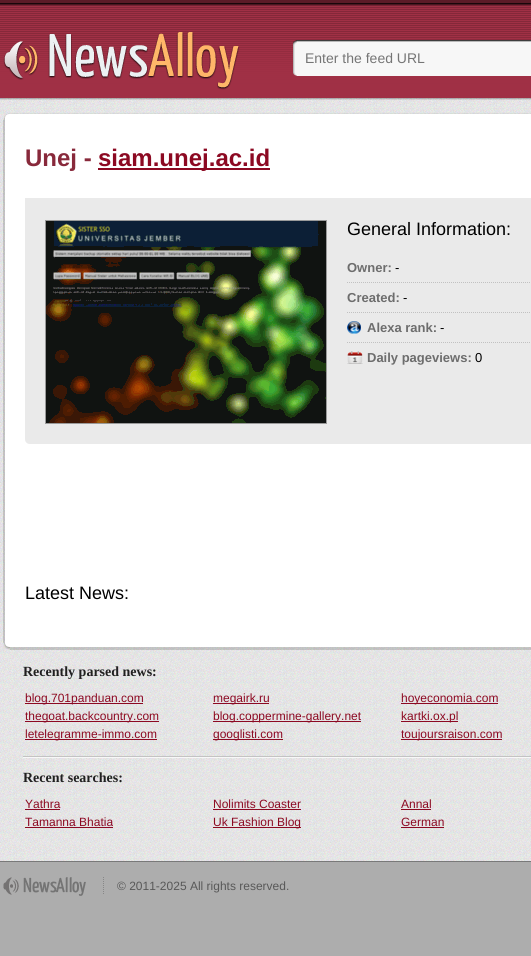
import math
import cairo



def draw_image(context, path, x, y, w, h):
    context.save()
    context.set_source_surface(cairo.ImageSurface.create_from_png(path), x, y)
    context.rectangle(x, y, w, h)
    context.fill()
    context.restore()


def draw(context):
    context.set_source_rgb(173 / 255, 173 / 255, 173 / 255)
    context.paint()
    draw_image(context, "images/5.png", 0, 98, 531, 763)
    draw_image(context, "images/1.png", 0, 0, 531, 100)
    draw_image(context, "images/2.png", 3, 32, 237, 58)
    draw_image(context, "images/3.png", 293, 40, 4, 36)
    draw_image(context, "images/4.png", 297, 40, 234, 36)
    context.set_source_rgb(121 / 255, 121 / 255, 121 / 255)
    context.rectangle(0, 861, 531, 1)
    context.fill()
    context.set_source_rgba(0, 0, 0, 0.05)
    context.rectangle(3, 113, 528, 1)
    context.fill()
    context.set_source_rgba(0, 0, 0, 0.15)
    context.rectangle(3, 647, 528, 3)
    context.fill()
    context.rectangle(3, 114, 2, 533)
    context.fill()
    context.set_source_rgb(1, 1, 1)
    context.rectangle(5, 114, 526, 533)
    context.fill()
    draw_image(context, "images/6.png", 3, 113, 7, 7)
    context.set_source_rgb(140 / 255, 9 / 255, 34 / 255)
    context.rectangle(98, 168, 172, 2)
    context.fill()
    context.set_source_rgb(234 / 255, 234 / 255, 234 / 255)
    context.rectangle(25, 198, 506, 2)
    context.fill()
    context.new_path()
    context.move_to(25, 200)
    context.line_to(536, 200)
    context.line_to(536, 439)
    context.curve_to(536, 442, 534, 444, 531, 444)
    context.line_to(30, 444)
    context.curve_to(27, 444, 25, 442, 25, 439)
    context.close_path()
    context.fill()
    context.rectangle(45.5, 220.5, 281, 203)
    context.set_source_rgb(154 / 255, 154 / 255, 154 / 255)
    context.set_line_width(1)
    context.stroke()
    draw_image(context, "images/7.png", 46, 221, 280, 202)
    context.new_path()
    context.move_to(347, 282.5)
    context.line_to(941, 282.5)
    context.set_source_rgb(193 / 255, 193 / 255, 193 / 255)
    context.set_dash([1, 1])
    context.stroke()
    context.new_path()
    context.move_to(347, 312.5)
    context.line_to(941, 312.5)
    context.stroke()
    draw_image(context, "images/8.png", 347, 321, 14, 13)
    context.new_path()
    context.move_to(347, 342.5)
    context.line_to(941, 342.5)
    context.stroke()
    draw_image(context, "images/9.png", 347, 351, 16, 13)
    draw_image(context, "images/10.png", 3, 643, 7, 7)
    draw_image(context, "images/11.png", 23, 756, 508, 2)
    context.set_source_rgb(140 / 255, 9 / 255, 34 / 255)
    context.rectangle(25, 703, 118, 1)
    context.fill()
    context.rectangle(213, 703, 56, 1)
    context.fill()
    context.rectangle(401, 703, 97, 1)
    context.fill()
    context.rectangle(25, 721, 134, 1)
    context.fill()
    context.rectangle(213, 721, 148, 1)
    context.fill()
    context.rectangle(401, 721, 57, 1)
    context.fill()
    context.rectangle(25, 739, 132, 1)
    context.fill()
    context.rectangle(213, 739, 70, 1)
    context.fill()
    context.rectangle(401, 739, 101, 1)
    context.fill()
    context.rectangle(25, 809, 35, 1)
    context.fill()
    context.rectangle(213, 809, 88, 1)
    context.fill()
    context.rectangle(401, 809, 30, 1)
    context.fill()
    context.rectangle(25, 827, 88, 1)
    context.fill()
    context.rectangle(213, 827, 88, 1)
    context.fill()
    context.rectangle(401, 827, 43, 1)
    context.fill()
    draw_image(context, "images/12.png", 3, 877, 83, 19)
    context.new_path()
    context.move_to(103.5, 877)
    context.line_to(103.5, 895)
    context.set_source_rgb(135 / 255, 135 / 255, 135 / 255)
    context.stroke()
    context.select_font_face("Liberation Sans")
    context.set_font_size(14)
    context.set_source_rgb(117 / 255, 117 / 255, 117 / 255)
    context.move_to(305, 63)
    context.show_text("Enter the feed URL")
    context.select_font_face("Liberation Sans", cairo.FontSlant.NORMAL, cairo.FontWeight.BOLD)
    context.set_font_size(24)
    context.set_source_rgb(136 / 255, 41 / 255, 59 / 255)
    context.move_to(25, 166)
    context.show_text("Unej -")
    context.set_source_rgb(140 / 255, 9 / 255, 34 / 255)
    context.move_to(98, 166)
    context.show_text("siam.unej.ac.id")
    context.select_font_face("Liberation Sans")
    context.set_font_size(18)
    context.set_source_rgb(0, 0, 0)
    context.move_to(347, 235)
    context.show_text("General Information:")
    context.select_font_face("Liberation Sans", cairo.FontSlant.NORMAL, cairo.FontWeight.BOLD)
    context.set_font_size(13)
    context.set_source_rgb(109 / 255, 109 / 255, 109 / 255)
    context.move_to(347, 272)
    context.show_text("Owner:")
    context.select_font_face("Liberation Sans")
    context.set_source_rgb(0, 0, 0)
    context.move_to(395, 272)
    context.show_text("-")
    context.select_font_face("Liberation Sans", cairo.FontSlant.NORMAL, cairo.FontWeight.BOLD)
    context.set_source_rgb(109 / 255, 109 / 255, 109 / 255)
    context.move_to(347, 302)
    context.show_text("Created:")
    context.select_font_face("Liberation Sans")
    context.set_source_rgb(0, 0, 0)
    context.move_to(403, 302)
    context.show_text("-")
    context.select_font_face("Liberation Sans", cairo.FontSlant.NORMAL, cairo.FontWeight.BOLD)
    context.set_source_rgb(109 / 255, 109 / 255, 109 / 255)
    context.move_to(367, 332)
    context.show_text("Alexa rank:")
    context.select_font_face("Liberation Sans")
    context.set_source_rgb(0, 0, 0)
    context.move_to(440, 332)
    context.show_text("-")
    context.select_font_face("Liberation Sans", cairo.FontSlant.NORMAL, cairo.FontWeight.BOLD)
    context.set_source_rgb(109 / 255, 109 / 255, 109 / 255)
    context.move_to(367, 362)
    context.show_text("Daily pageviews:")
    context.select_font_face("Liberation Sans")
    context.set_source_rgb(0, 0, 0)
    context.move_to(475, 362)
    context.show_text("0")
    context.set_font_size(18)
    context.move_to(25, 599)
    context.show_text("Latest News:")
    context.select_font_face("Liberation Serif", cairo.FontSlant.NORMAL, cairo.FontWeight.BOLD)
    context.set_font_size(14)
    context.set_source_rgb(32 / 255, 32 / 255, 32 / 255)
    context.move_to(23, 676)
    context.show_text("Recently parsed news:")
    context.select_font_face("Liberation Sans")
    context.set_font_size(12)
    context.set_source_rgb(140 / 255, 9 / 255, 34 / 255)
    context.move_to(25, 702)
    context.show_text("blog.701panduan.com")
    context.move_to(213, 702)
    context.show_text("megairk.ru")
    context.move_to(401, 702)
    context.show_text("hoyeconomia.com")
    context.move_to(25, 720)
    context.show_text("thegoat.backcountry.com")
    context.move_to(213, 720)
    context.show_text("blog.coppermine-gallery.net")
    context.move_to(401, 720)
    context.show_text("kartki.ox.pl")
    context.move_to(25, 738)
    context.show_text("letelegramme-immo.com")
    context.move_to(213, 738)
    context.show_text("googlisti.com")
    context.move_to(401, 738)
    context.show_text("toujoursraison.com")
    context.select_font_face("Liberation Serif", cairo.FontSlant.NORMAL, cairo.FontWeight.BOLD)
    context.set_font_size(14)
    context.set_source_rgb(32 / 255, 32 / 255, 32 / 255)
    context.move_to(23, 782)
    context.show_text("Recent searches:")
    context.select_font_face("Liberation Sans")
    context.set_font_size(12)
    context.set_source_rgb(140 / 255, 9 / 255, 34 / 255)
    context.move_to(25, 808)
    context.show_text("Yathra")
    context.move_to(213, 808)
    context.show_text("Nolimits Coaster")
    context.move_to(401, 808)
    context.show_text("Annal")
    context.move_to(25, 826)
    context.show_text("Tamanna Bhatia")
    context.move_to(213, 826)
    context.show_text("Uk Fashion Blog")
    context.move_to(401, 826)
    context.show_text("German")
    context.set_source_rgb(88 / 255, 88 / 255, 88 / 255)
    context.move_to(117, 890)
    context.show_text("© 2011-2025 All rights reserved.")


surface = cairo.ImageSurface(cairo.Format.RGB24, 531, 956)
context = cairo.Context(surface)
options = cairo.FontOptions()
options.set_hint_metrics(cairo.HintMetrics.OFF)
options.set_hint_style(cairo.HintStyle.NONE)
context.set_font_options(options)
context.set_miter_limit(4)
draw(context)
surface.write_to_png("out.png")
